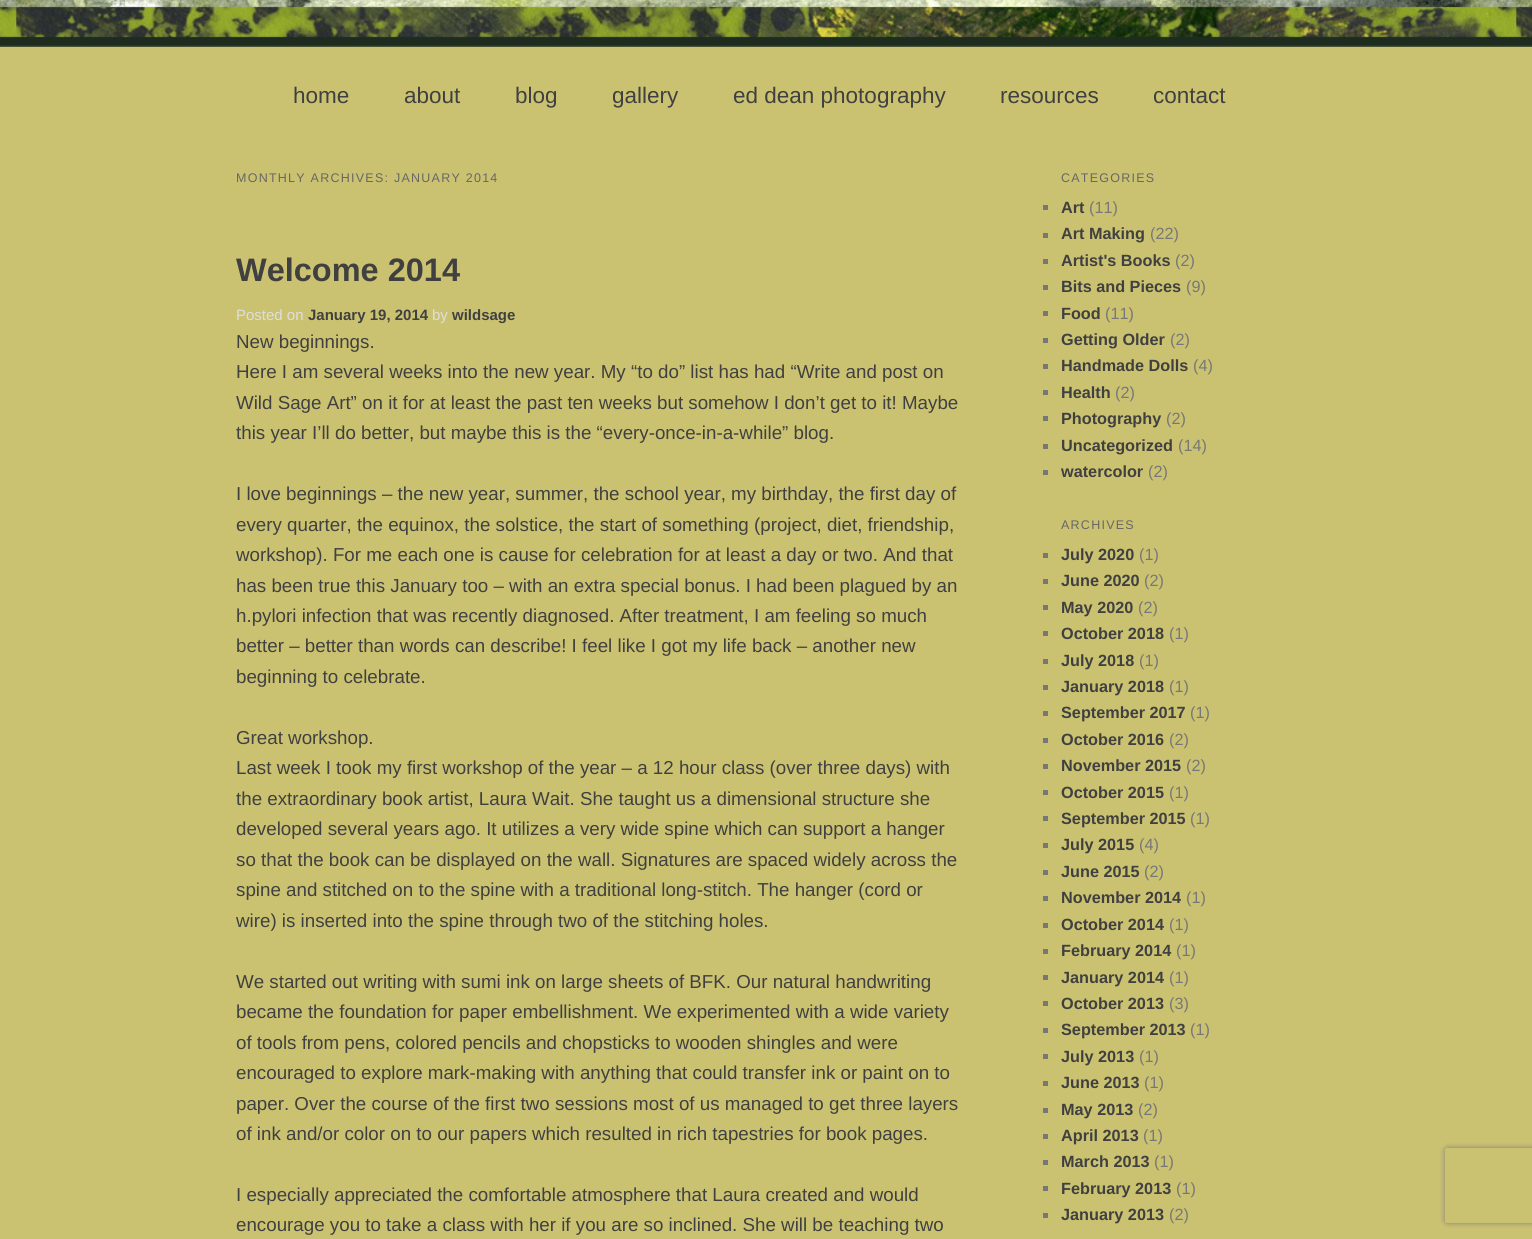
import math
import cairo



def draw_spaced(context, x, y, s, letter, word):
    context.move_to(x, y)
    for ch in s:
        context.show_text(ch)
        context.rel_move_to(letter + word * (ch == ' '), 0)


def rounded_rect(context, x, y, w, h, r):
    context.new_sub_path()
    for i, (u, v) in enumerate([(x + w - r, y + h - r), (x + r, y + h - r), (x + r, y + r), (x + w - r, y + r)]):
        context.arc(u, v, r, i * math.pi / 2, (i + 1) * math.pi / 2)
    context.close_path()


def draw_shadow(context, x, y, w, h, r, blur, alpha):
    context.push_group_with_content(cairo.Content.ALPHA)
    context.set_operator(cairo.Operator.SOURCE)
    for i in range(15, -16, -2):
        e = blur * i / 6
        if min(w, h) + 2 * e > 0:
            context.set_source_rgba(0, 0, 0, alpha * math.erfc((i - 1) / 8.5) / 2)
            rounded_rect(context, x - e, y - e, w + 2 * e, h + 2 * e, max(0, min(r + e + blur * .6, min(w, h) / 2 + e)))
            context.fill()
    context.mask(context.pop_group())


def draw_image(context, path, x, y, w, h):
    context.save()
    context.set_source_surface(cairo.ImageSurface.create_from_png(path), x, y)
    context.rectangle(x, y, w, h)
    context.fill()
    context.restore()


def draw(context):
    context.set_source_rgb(203 / 255, 194 / 255, 113 / 255)
    context.paint()
    draw_image(context, "images/1.png", 0, 0, 1532, 47)
    context.set_source_rgb(119 / 255, 119 / 255, 119 / 255)
    context.rectangle(1043, 205, 5, 5)
    context.fill()
    context.rectangle(1043, 233, 5, 5)
    context.fill()
    context.rectangle(1043, 259, 5, 5)
    context.fill()
    context.rectangle(1043, 285, 5, 5)
    context.fill()
    context.rectangle(1043, 311, 5, 5)
    context.fill()
    context.rectangle(1043, 338, 5, 5)
    context.fill()
    context.rectangle(1043, 364, 5, 5)
    context.fill()
    context.rectangle(1043, 390, 5, 5)
    context.fill()
    context.rectangle(1043, 416, 5, 5)
    context.fill()
    context.rectangle(1043, 444, 5, 5)
    context.fill()
    context.rectangle(1043, 470, 5, 5)
    context.fill()
    context.rectangle(1043, 553, 5, 5)
    context.fill()
    context.rectangle(1043, 579, 5, 5)
    context.fill()
    context.rectangle(1043, 605, 5, 5)
    context.fill()
    context.rectangle(1043, 631, 5, 5)
    context.fill()
    context.rectangle(1043, 659, 5, 5)
    context.fill()
    context.rectangle(1043, 685, 5, 5)
    context.fill()
    context.rectangle(1043, 711, 5, 5)
    context.fill()
    context.rectangle(1043, 738, 5, 5)
    context.fill()
    context.rectangle(1043, 764, 5, 5)
    context.fill()
    context.rectangle(1043, 790, 5, 5)
    context.fill()
    context.rectangle(1043, 816, 5, 5)
    context.fill()
    context.rectangle(1043, 843, 5, 5)
    context.fill()
    context.rectangle(1043, 870, 5, 5)
    context.fill()
    context.rectangle(1043, 896, 5, 5)
    context.fill()
    context.rectangle(1043, 923, 5, 5)
    context.fill()
    context.rectangle(1043, 949, 5, 5)
    context.fill()
    context.rectangle(1043, 975, 5, 5)
    context.fill()
    context.rectangle(1043, 1001, 5, 5)
    context.fill()
    context.rectangle(1043, 1028, 5, 5)
    context.fill()
    context.rectangle(1043, 1054, 5, 5)
    context.fill()
    context.rectangle(1043, 1081, 5, 5)
    context.fill()
    context.rectangle(1043, 1108, 5, 5)
    context.fill()
    context.rectangle(1043, 1134, 5, 5)
    context.fill()
    context.rectangle(1043, 1160, 5, 5)
    context.fill()
    context.rectangle(1043, 1186, 5, 5)
    context.fill()
    context.rectangle(1043, 1213, 5, 5)
    context.fill()
    context.save()
    context.set_fill_rule(cairo.FillRule.EVEN_ODD)
    context.new_path()
    context.move_to(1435, 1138)
    context.line_to(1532, 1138)
    context.line_to(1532, 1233)
    context.line_to(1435, 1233)
    context.close_path()
    context.move_to(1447.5, 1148)
    context.line_to(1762.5, 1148)
    context.curve_to(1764, 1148, 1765, 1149, 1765, 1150.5)
    context.line_to(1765, 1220.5)
    context.curve_to(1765, 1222, 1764, 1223, 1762.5, 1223)
    context.line_to(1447.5, 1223)
    context.curve_to(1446, 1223, 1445, 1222, 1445, 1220.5)
    context.line_to(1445, 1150.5)
    context.curve_to(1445, 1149, 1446, 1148, 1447.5, 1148)
    context.close_path()
    context.clip()
    context.set_source_rgb(128 / 255, 128 / 255, 128 / 255)
    draw_shadow(context, 1445, 1148, 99, 75, 2.5, 3, 1)
    context.restore()
    context.select_font_face("Liberation Sans")
    context.set_font_size(22.5)
    context.set_source_rgb(64 / 255, 64 / 255, 64 / 255)
    context.move_to(293, 103)
    context.show_text("home")
    context.move_to(404, 103)
    context.show_text("about")
    context.move_to(515, 103)
    context.show_text("blog")
    context.move_to(612, 103)
    context.show_text("gallery")
    context.move_to(733, 103)
    context.show_text("ed dean photography")
    context.move_to(1000, 103)
    context.show_text("resources")
    context.move_to(1153, 103)
    context.show_text("contact")
    context.set_font_size(12.5)
    context.set_source_rgb(102 / 255, 102 / 255, 102 / 255)
    draw_spaced(context, 236, 182, "MONTHLY ARCHIVES: JANUARY 2014", 1.25, 0)
    context.select_font_face("Liberation Sans", cairo.FontSlant.NORMAL, cairo.FontWeight.BOLD)
    context.set_font_size(32.5)
    context.set_source_rgb(64 / 255, 64 / 255, 64 / 255)
    context.move_to(236, 281)
    context.show_text("Welcome 2014")
    context.select_font_face("Liberation Sans")
    context.set_font_size(15)
    context.set_source_rgb(222 / 255, 222 / 255, 222 / 255)
    context.move_to(236, 320)
    context.show_text("Posted on")
    context.select_font_face("Liberation Sans", cairo.FontSlant.NORMAL, cairo.FontWeight.BOLD)
    context.set_source_rgb(64 / 255, 64 / 255, 64 / 255)
    context.move_to(308, 320)
    context.show_text("January 19, 2014")
    context.select_font_face("Liberation Sans")
    context.set_source_rgb(222 / 255, 222 / 255, 222 / 255)
    context.move_to(432, 320)
    context.show_text("by")
    context.select_font_face("Liberation Sans", cairo.FontSlant.NORMAL, cairo.FontWeight.BOLD)
    context.set_source_rgb(64 / 255, 64 / 255, 64 / 255)
    context.move_to(452, 320)
    context.show_text("wildsage")
    context.select_font_face("Liberation Sans")
    context.set_font_size(18.75)
    context.move_to(236, 348)
    context.show_text("New beginnings.")
    context.move_to(236, 378)
    context.show_text("Here I am several weeks into the new year. My “to do” list has had “Write and post on")
    context.move_to(236, 409)
    context.show_text("Wild Sage Art” on it for at least the past ten weeks but somehow I don’t get to it! Maybe")
    context.move_to(236, 439)
    context.show_text("this year I’ll do better, but maybe this is the “every-once-in-a-while” blog.")
    context.move_to(236, 500)
    context.show_text("I love beginnings – the new year, summer, the school year, my birthday, the first day of")
    context.move_to(236, 531)
    context.show_text("every quarter, the equinox, the solstice, the start of something (project, diet, friendship,")
    context.move_to(236, 561)
    context.show_text("workshop). For me each one is cause for celebration for at least a day or two. And that")
    context.move_to(236, 592)
    context.show_text("has been true this January too – with an extra special bonus. I had been plagued by an")
    context.move_to(236, 622)
    context.show_text("h.pylori infection that was recently diagnosed. After treatment, I am feeling so much")
    context.move_to(236, 652)
    context.show_text("better – better than words can describe! I feel like I got my life back – another new")
    context.move_to(236, 683)
    context.show_text("beginning to celebrate.")
    context.move_to(236, 744)
    context.show_text("Great workshop.")
    context.move_to(236, 774)
    context.show_text("Last week I took my first workshop of the year – a 12 hour class (over three days) with")
    context.move_to(236, 805)
    context.show_text("the extraordinary book artist, Laura Wait. She taught us a dimensional structure she")
    context.move_to(236, 835)
    context.show_text("developed several years ago. It utilizes a very wide spine which can support a hanger")
    context.move_to(236, 866)
    context.show_text("so that the book can be displayed on the wall. Signatures are spaced widely across the")
    context.move_to(236, 896)
    context.show_text("spine and stitched on to the spine with a traditional long-stitch. The hanger (cord or")
    context.move_to(236, 927)
    context.show_text("wire) is inserted into the spine through two of the stitching holes.")
    context.move_to(236, 988)
    context.show_text("We started out writing with sumi ink on large sheets of BFK. Our natural handwriting")
    context.move_to(236, 1018)
    context.show_text("became the foundation for paper embellishment. We experimented with a wide variety")
    context.move_to(236, 1049)
    context.show_text("of tools from pens, colored pencils and chopsticks to wooden shingles and were")
    context.move_to(236, 1079)
    context.show_text("encouraged to explore mark-making with anything that could transfer ink or paint on to")
    context.move_to(236, 1110)
    context.show_text("paper. Over the course of the first two sessions most of us managed to get three layers")
    context.move_to(236, 1140)
    context.show_text("of ink and/or color on to our papers which resulted in rich tapestries for book pages.")
    context.move_to(236, 1201)
    context.show_text("I especially appreciated the comfortable atmosphere that Laura created and would")
    context.move_to(236, 1231)
    context.show_text("encourage you to take a class with her if you are so inclined. She will be teaching two")
    context.set_font_size(12.5)
    context.set_source_rgb(102 / 255, 102 / 255, 102 / 255)
    draw_spaced(context, 1061, 182, "CATEGORIES", 1.25, 0)
    context.select_font_face("Liberation Sans", cairo.FontSlant.NORMAL, cairo.FontWeight.BOLD)
    context.set_font_size(16.25)
    context.set_source_rgb(64 / 255, 64 / 255, 64 / 255)
    context.move_to(1061, 213)
    context.show_text("Art")
    context.select_font_face("Liberation Sans")
    context.set_source_rgb(119 / 255, 119 / 255, 119 / 255)
    context.move_to(1089, 213)
    context.show_text("(11)")
    context.select_font_face("Liberation Sans", cairo.FontSlant.NORMAL, cairo.FontWeight.BOLD)
    context.set_source_rgb(64 / 255, 64 / 255, 64 / 255)
    context.move_to(1061, 239)
    context.show_text("Art Making")
    context.select_font_face("Liberation Sans")
    context.set_source_rgb(119 / 255, 119 / 255, 119 / 255)
    context.move_to(1150, 239)
    context.show_text("(22)")
    context.select_font_face("Liberation Sans", cairo.FontSlant.NORMAL, cairo.FontWeight.BOLD)
    context.set_source_rgb(64 / 255, 64 / 255, 64 / 255)
    context.move_to(1061, 266)
    context.show_text("Artist's Books")
    context.select_font_face("Liberation Sans")
    context.set_source_rgb(119 / 255, 119 / 255, 119 / 255)
    context.move_to(1175, 266)
    context.show_text("(2)")
    context.select_font_face("Liberation Sans", cairo.FontSlant.NORMAL, cairo.FontWeight.BOLD)
    context.set_source_rgb(64 / 255, 64 / 255, 64 / 255)
    context.move_to(1061, 292)
    context.show_text("Bits and Pieces")
    context.select_font_face("Liberation Sans")
    context.set_source_rgb(119 / 255, 119 / 255, 119 / 255)
    context.move_to(1186, 292)
    context.show_text("(9)")
    context.select_font_face("Liberation Sans", cairo.FontSlant.NORMAL, cairo.FontWeight.BOLD)
    context.set_source_rgb(64 / 255, 64 / 255, 64 / 255)
    context.move_to(1061, 319)
    context.show_text("Food")
    context.select_font_face("Liberation Sans")
    context.set_source_rgb(119 / 255, 119 / 255, 119 / 255)
    context.move_to(1105, 319)
    context.show_text("(11)")
    context.select_font_face("Liberation Sans", cairo.FontSlant.NORMAL, cairo.FontWeight.BOLD)
    context.set_source_rgb(64 / 255, 64 / 255, 64 / 255)
    context.move_to(1061, 345)
    context.show_text("Getting Older")
    context.select_font_face("Liberation Sans")
    context.set_source_rgb(119 / 255, 119 / 255, 119 / 255)
    context.move_to(1170, 345)
    context.show_text("(2)")
    context.select_font_face("Liberation Sans", cairo.FontSlant.NORMAL, cairo.FontWeight.BOLD)
    context.set_source_rgb(64 / 255, 64 / 255, 64 / 255)
    context.move_to(1061, 371)
    context.show_text("Handmade Dolls")
    context.select_font_face("Liberation Sans")
    context.set_source_rgb(119 / 255, 119 / 255, 119 / 255)
    context.move_to(1193, 371)
    context.show_text("(4)")
    context.select_font_face("Liberation Sans", cairo.FontSlant.NORMAL, cairo.FontWeight.BOLD)
    context.set_source_rgb(64 / 255, 64 / 255, 64 / 255)
    context.move_to(1061, 398)
    context.show_text("Health")
    context.select_font_face("Liberation Sans")
    context.set_source_rgb(119 / 255, 119 / 255, 119 / 255)
    context.move_to(1115, 398)
    context.show_text("(2)")
    context.select_font_face("Liberation Sans", cairo.FontSlant.NORMAL, cairo.FontWeight.BOLD)
    context.set_source_rgb(64 / 255, 64 / 255, 64 / 255)
    context.move_to(1061, 424)
    context.show_text("Photography")
    context.select_font_face("Liberation Sans")
    context.set_source_rgb(119 / 255, 119 / 255, 119 / 255)
    context.move_to(1166, 424)
    context.show_text("(2)")
    context.select_font_face("Liberation Sans", cairo.FontSlant.NORMAL, cairo.FontWeight.BOLD)
    context.set_source_rgb(64 / 255, 64 / 255, 64 / 255)
    context.move_to(1061, 451)
    context.show_text("Uncategorized")
    context.select_font_face("Liberation Sans")
    context.set_source_rgb(119 / 255, 119 / 255, 119 / 255)
    context.move_to(1178, 451)
    context.show_text("(14)")
    context.select_font_face("Liberation Sans", cairo.FontSlant.NORMAL, cairo.FontWeight.BOLD)
    context.set_source_rgb(64 / 255, 64 / 255, 64 / 255)
    context.move_to(1061, 477)
    context.show_text("watercolor")
    context.select_font_face("Liberation Sans")
    context.set_source_rgb(119 / 255, 119 / 255, 119 / 255)
    context.move_to(1148, 477)
    context.show_text("(2)")
    context.set_font_size(12.5)
    context.set_source_rgb(102 / 255, 102 / 255, 102 / 255)
    draw_spaced(context, 1061, 529, "ARCHIVES", 1.25, 0)
    context.select_font_face("Liberation Sans", cairo.FontSlant.NORMAL, cairo.FontWeight.BOLD)
    context.set_font_size(16.25)
    context.set_source_rgb(64 / 255, 64 / 255, 64 / 255)
    context.move_to(1061, 560)
    context.show_text("July 2020")
    context.select_font_face("Liberation Sans")
    context.set_source_rgb(119 / 255, 119 / 255, 119 / 255)
    context.move_to(1139, 560)
    context.show_text("(1)")
    context.select_font_face("Liberation Sans", cairo.FontSlant.NORMAL, cairo.FontWeight.BOLD)
    context.set_source_rgb(64 / 255, 64 / 255, 64 / 255)
    context.move_to(1061, 586)
    context.show_text("June 2020")
    context.select_font_face("Liberation Sans")
    context.set_source_rgb(119 / 255, 119 / 255, 119 / 255)
    context.move_to(1144, 586)
    context.show_text("(2)")
    context.select_font_face("Liberation Sans", cairo.FontSlant.NORMAL, cairo.FontWeight.BOLD)
    context.set_source_rgb(64 / 255, 64 / 255, 64 / 255)
    context.move_to(1061, 613)
    context.show_text("May 2020")
    context.select_font_face("Liberation Sans")
    context.set_source_rgb(119 / 255, 119 / 255, 119 / 255)
    context.move_to(1138, 613)
    context.show_text("(2)")
    context.select_font_face("Liberation Sans", cairo.FontSlant.NORMAL, cairo.FontWeight.BOLD)
    context.set_source_rgb(64 / 255, 64 / 255, 64 / 255)
    context.move_to(1061, 639)
    context.show_text("October 2018")
    context.select_font_face("Liberation Sans")
    context.set_source_rgb(119 / 255, 119 / 255, 119 / 255)
    context.move_to(1169, 639)
    context.show_text("(1)")
    context.select_font_face("Liberation Sans", cairo.FontSlant.NORMAL, cairo.FontWeight.BOLD)
    context.set_source_rgb(64 / 255, 64 / 255, 64 / 255)
    context.move_to(1061, 666)
    context.show_text("July 2018")
    context.select_font_face("Liberation Sans")
    context.set_source_rgb(119 / 255, 119 / 255, 119 / 255)
    context.move_to(1139, 666)
    context.show_text("(1)")
    context.select_font_face("Liberation Sans", cairo.FontSlant.NORMAL, cairo.FontWeight.BOLD)
    context.set_source_rgb(64 / 255, 64 / 255, 64 / 255)
    context.move_to(1061, 692)
    context.show_text("January 2018")
    context.select_font_face("Liberation Sans")
    context.set_source_rgb(119 / 255, 119 / 255, 119 / 255)
    context.move_to(1169, 692)
    context.show_text("(1)")
    context.select_font_face("Liberation Sans", cairo.FontSlant.NORMAL, cairo.FontWeight.BOLD)
    context.set_source_rgb(64 / 255, 64 / 255, 64 / 255)
    context.move_to(1061, 718)
    context.show_text("September 2017")
    context.select_font_face("Liberation Sans")
    context.set_source_rgb(119 / 255, 119 / 255, 119 / 255)
    context.move_to(1190, 718)
    context.show_text("(1)")
    context.select_font_face("Liberation Sans", cairo.FontSlant.NORMAL, cairo.FontWeight.BOLD)
    context.set_source_rgb(64 / 255, 64 / 255, 64 / 255)
    context.move_to(1061, 745)
    context.show_text("October 2016")
    context.select_font_face("Liberation Sans")
    context.set_source_rgb(119 / 255, 119 / 255, 119 / 255)
    context.move_to(1169, 745)
    context.show_text("(2)")
    context.select_font_face("Liberation Sans", cairo.FontSlant.NORMAL, cairo.FontWeight.BOLD)
    context.set_source_rgb(64 / 255, 64 / 255, 64 / 255)
    context.move_to(1061, 771)
    context.show_text("November 2015")
    context.select_font_face("Liberation Sans")
    context.set_source_rgb(119 / 255, 119 / 255, 119 / 255)
    context.move_to(1186, 771)
    context.show_text("(2)")
    context.select_font_face("Liberation Sans", cairo.FontSlant.NORMAL, cairo.FontWeight.BOLD)
    context.set_source_rgb(64 / 255, 64 / 255, 64 / 255)
    context.move_to(1061, 798)
    context.show_text("October 2015")
    context.select_font_face("Liberation Sans")
    context.set_source_rgb(119 / 255, 119 / 255, 119 / 255)
    context.move_to(1169, 798)
    context.show_text("(1)")
    context.select_font_face("Liberation Sans", cairo.FontSlant.NORMAL, cairo.FontWeight.BOLD)
    context.set_source_rgb(64 / 255, 64 / 255, 64 / 255)
    context.move_to(1061, 824)
    context.show_text("September 2015")
    context.select_font_face("Liberation Sans")
    context.set_source_rgb(119 / 255, 119 / 255, 119 / 255)
    context.move_to(1190, 824)
    context.show_text("(1)")
    context.select_font_face("Liberation Sans", cairo.FontSlant.NORMAL, cairo.FontWeight.BOLD)
    context.set_source_rgb(64 / 255, 64 / 255, 64 / 255)
    context.move_to(1061, 850)
    context.show_text("July 2015")
    context.select_font_face("Liberation Sans")
    context.set_source_rgb(119 / 255, 119 / 255, 119 / 255)
    context.move_to(1139, 850)
    context.show_text("(4)")
    context.select_font_face("Liberation Sans", cairo.FontSlant.NORMAL, cairo.FontWeight.BOLD)
    context.set_source_rgb(64 / 255, 64 / 255, 64 / 255)
    context.move_to(1061, 877)
    context.show_text("June 2015")
    context.select_font_face("Liberation Sans")
    context.set_source_rgb(119 / 255, 119 / 255, 119 / 255)
    context.move_to(1144, 877)
    context.show_text("(2)")
    context.select_font_face("Liberation Sans", cairo.FontSlant.NORMAL, cairo.FontWeight.BOLD)
    context.set_source_rgb(64 / 255, 64 / 255, 64 / 255)
    context.move_to(1061, 903)
    context.show_text("November 2014")
    context.select_font_face("Liberation Sans")
    context.set_source_rgb(119 / 255, 119 / 255, 119 / 255)
    context.move_to(1186, 903)
    context.show_text("(1)")
    context.select_font_face("Liberation Sans", cairo.FontSlant.NORMAL, cairo.FontWeight.BOLD)
    context.set_source_rgb(64 / 255, 64 / 255, 64 / 255)
    context.move_to(1061, 930)
    context.show_text("October 2014")
    context.select_font_face("Liberation Sans")
    context.set_source_rgb(119 / 255, 119 / 255, 119 / 255)
    context.move_to(1169, 930)
    context.show_text("(1)")
    context.select_font_face("Liberation Sans", cairo.FontSlant.NORMAL, cairo.FontWeight.BOLD)
    context.set_source_rgb(64 / 255, 64 / 255, 64 / 255)
    context.move_to(1061, 956)
    context.show_text("February 2014")
    context.select_font_face("Liberation Sans")
    context.set_source_rgb(119 / 255, 119 / 255, 119 / 255)
    context.move_to(1176, 956)
    context.show_text("(1)")
    context.select_font_face("Liberation Sans", cairo.FontSlant.NORMAL, cairo.FontWeight.BOLD)
    context.set_source_rgb(64 / 255, 64 / 255, 64 / 255)
    context.move_to(1061, 983)
    context.show_text("January 2014")
    context.select_font_face("Liberation Sans")
    context.set_source_rgb(119 / 255, 119 / 255, 119 / 255)
    context.move_to(1169, 983)
    context.show_text("(1)")
    context.select_font_face("Liberation Sans", cairo.FontSlant.NORMAL, cairo.FontWeight.BOLD)
    context.set_source_rgb(64 / 255, 64 / 255, 64 / 255)
    context.move_to(1061, 1009)
    context.show_text("October 2013")
    context.select_font_face("Liberation Sans")
    context.set_source_rgb(119 / 255, 119 / 255, 119 / 255)
    context.move_to(1169, 1009)
    context.show_text("(3)")
    context.select_font_face("Liberation Sans", cairo.FontSlant.NORMAL, cairo.FontWeight.BOLD)
    context.set_source_rgb(64 / 255, 64 / 255, 64 / 255)
    context.move_to(1061, 1035)
    context.show_text("September 2013")
    context.select_font_face("Liberation Sans")
    context.set_source_rgb(119 / 255, 119 / 255, 119 / 255)
    context.move_to(1190, 1035)
    context.show_text("(1)")
    context.select_font_face("Liberation Sans", cairo.FontSlant.NORMAL, cairo.FontWeight.BOLD)
    context.set_source_rgb(64 / 255, 64 / 255, 64 / 255)
    context.move_to(1061, 1062)
    context.show_text("July 2013")
    context.select_font_face("Liberation Sans")
    context.set_source_rgb(119 / 255, 119 / 255, 119 / 255)
    context.move_to(1139, 1062)
    context.show_text("(1)")
    context.select_font_face("Liberation Sans", cairo.FontSlant.NORMAL, cairo.FontWeight.BOLD)
    context.set_source_rgb(64 / 255, 64 / 255, 64 / 255)
    context.move_to(1061, 1088)
    context.show_text("June 2013")
    context.select_font_face("Liberation Sans")
    context.set_source_rgb(119 / 255, 119 / 255, 119 / 255)
    context.move_to(1144, 1088)
    context.show_text("(1)")
    context.select_font_face("Liberation Sans", cairo.FontSlant.NORMAL, cairo.FontWeight.BOLD)
    context.set_source_rgb(64 / 255, 64 / 255, 64 / 255)
    context.move_to(1061, 1115)
    context.show_text("May 2013")
    context.select_font_face("Liberation Sans")
    context.set_source_rgb(119 / 255, 119 / 255, 119 / 255)
    context.move_to(1138, 1115)
    context.show_text("(2)")
    context.select_font_face("Liberation Sans", cairo.FontSlant.NORMAL, cairo.FontWeight.BOLD)
    context.set_source_rgb(64 / 255, 64 / 255, 64 / 255)
    context.move_to(1061, 1141)
    context.show_text("April 2013")
    context.select_font_face("Liberation Sans")
    context.set_source_rgb(119 / 255, 119 / 255, 119 / 255)
    context.move_to(1143, 1141)
    context.show_text("(1)")
    context.select_font_face("Liberation Sans", cairo.FontSlant.NORMAL, cairo.FontWeight.BOLD)
    context.set_source_rgb(64 / 255, 64 / 255, 64 / 255)
    context.move_to(1061, 1167)
    context.show_text("March 2013")
    context.select_font_face("Liberation Sans")
    context.set_source_rgb(119 / 255, 119 / 255, 119 / 255)
    context.move_to(1154, 1167)
    context.show_text("(1)")
    context.select_font_face("Liberation Sans", cairo.FontSlant.NORMAL, cairo.FontWeight.BOLD)
    context.set_source_rgb(64 / 255, 64 / 255, 64 / 255)
    context.move_to(1061, 1194)
    context.show_text("February 2013")
    context.select_font_face("Liberation Sans")
    context.set_source_rgb(119 / 255, 119 / 255, 119 / 255)
    context.move_to(1176, 1194)
    context.show_text("(1)")
    context.select_font_face("Liberation Sans", cairo.FontSlant.NORMAL, cairo.FontWeight.BOLD)
    context.set_source_rgb(64 / 255, 64 / 255, 64 / 255)
    context.move_to(1061, 1220)
    context.show_text("January 2013")
    context.select_font_face("Liberation Sans")
    context.set_source_rgb(119 / 255, 119 / 255, 119 / 255)
    context.move_to(1169, 1220)
    context.show_text("(2)")


surface = cairo.ImageSurface(cairo.Format.RGB24, 1532, 1239)
context = cairo.Context(surface)
options = cairo.FontOptions()
options.set_hint_metrics(cairo.HintMetrics.OFF)
options.set_hint_style(cairo.HintStyle.NONE)
context.set_font_options(options)
context.set_miter_limit(4)
draw(context)
surface.write_to_png("out.png")
